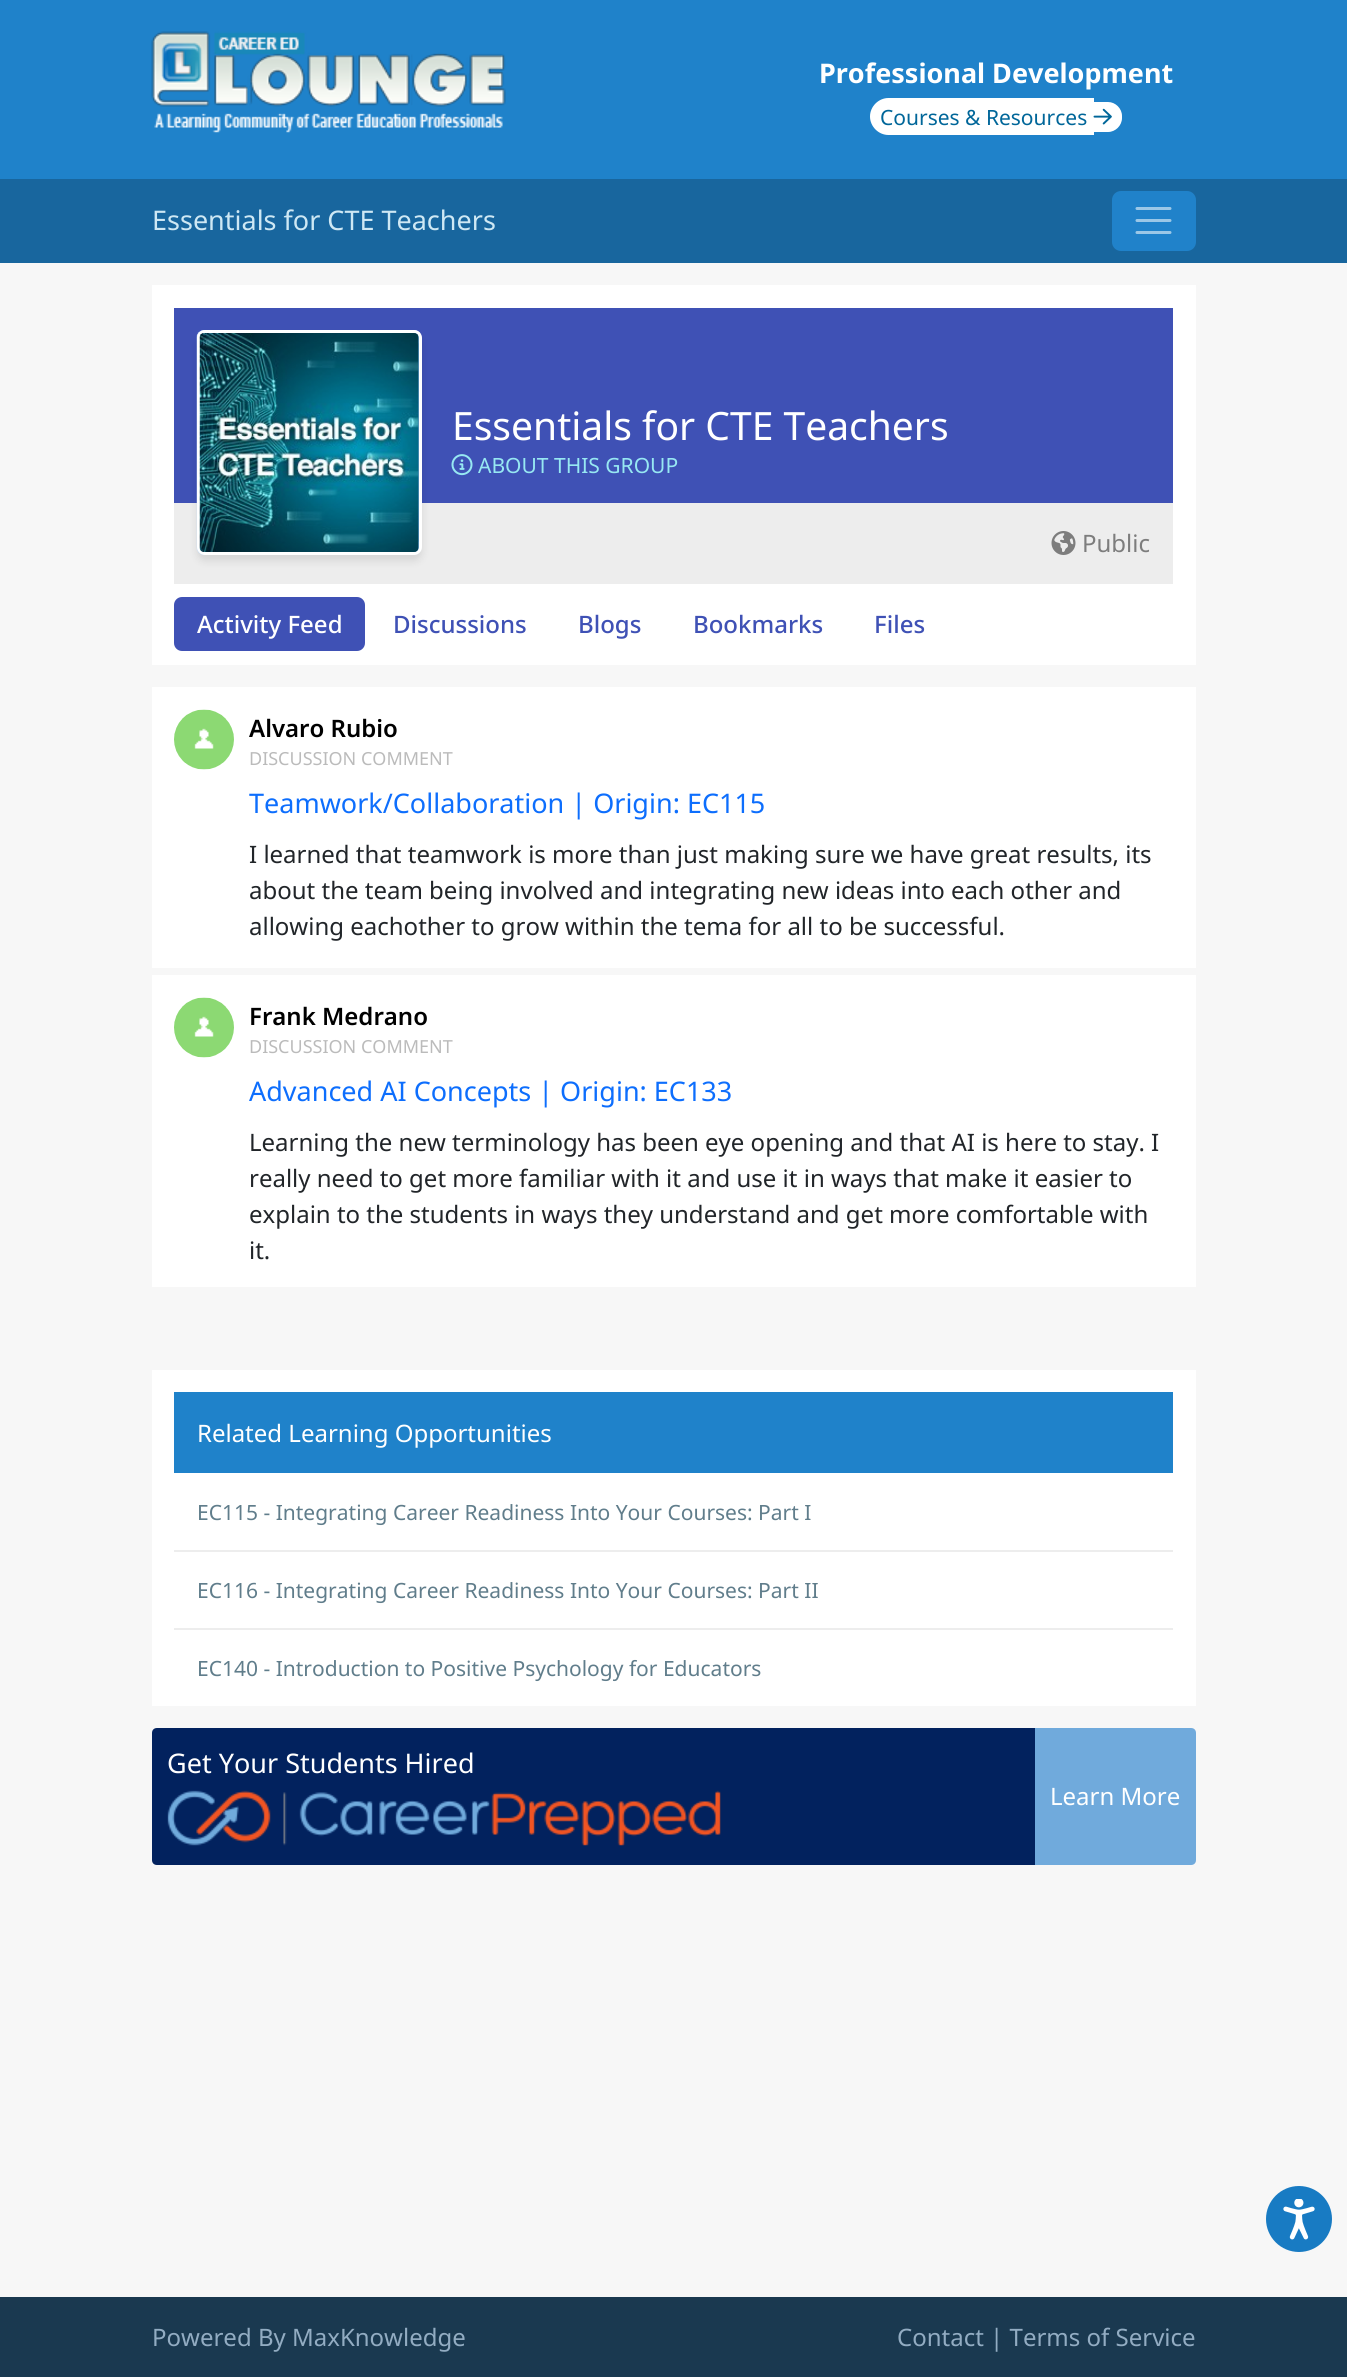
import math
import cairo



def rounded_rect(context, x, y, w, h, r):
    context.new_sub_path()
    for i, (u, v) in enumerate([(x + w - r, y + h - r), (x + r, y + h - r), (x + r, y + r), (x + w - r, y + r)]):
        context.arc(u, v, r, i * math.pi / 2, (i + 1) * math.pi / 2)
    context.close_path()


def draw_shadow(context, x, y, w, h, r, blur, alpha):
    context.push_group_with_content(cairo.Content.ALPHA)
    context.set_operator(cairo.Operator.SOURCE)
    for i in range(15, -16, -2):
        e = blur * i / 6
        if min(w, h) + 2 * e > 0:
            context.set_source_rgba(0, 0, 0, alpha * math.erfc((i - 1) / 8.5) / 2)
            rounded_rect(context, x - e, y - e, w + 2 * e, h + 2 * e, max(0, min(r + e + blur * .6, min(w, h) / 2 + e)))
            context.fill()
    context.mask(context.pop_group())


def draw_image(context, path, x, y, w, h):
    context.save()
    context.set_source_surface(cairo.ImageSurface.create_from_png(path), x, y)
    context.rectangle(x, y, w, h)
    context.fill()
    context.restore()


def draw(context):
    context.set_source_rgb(247 / 255, 247 / 255, 247 / 255)
    context.paint()
    context.set_source_rgb(31 / 255, 130 / 255, 202 / 255)
    context.rectangle(0, 0, 1347, 179)
    context.fill()
    draw_image(context, "images/1.png", 151, 31, 355, 102)
    context.set_source_rgb(1, 1, 1)
    context.new_path()
    context.move_to(888.5, 98)
    context.line_to(1094, 98)
    context.line_to(1094, 135)
    context.line_to(888.5, 135)
    context.curve_to(878.5, 135, 870, 126.5, 870, 116.5)
    context.curve_to(870, 106.5, 878.5, 98, 888.5, 98)
    context.close_path()
    context.fill()
    context.new_path()
    context.move_to(1094, 102)
    context.line_to(1108, 102)
    context.curve_to(1115.5, 102, 1122, 108.5, 1122, 116)
    context.line_to(1122, 118)
    context.curve_to(1122, 125.5, 1115.5, 132, 1108, 132)
    context.line_to(1094, 132)
    context.close_path()
    context.fill()
    draw_image(context, "images/2.png", 1093, 108, 19, 17)
    context.set_source_rgb(24 / 255, 102 / 255, 158 / 255)
    context.rectangle(0, 179, 1347, 84)
    context.fill()
    context.set_source_rgb(32 / 255, 130 / 255, 202 / 255)
    rounded_rect(context, 1113, 192, 82, 58, 8)
    context.fill_preserve()
    context.stroke()
    context.new_path()
    context.move_to(1137, 208.5)
    context.line_to(1170, 208.5)
    context.move_to(1137, 220.5)
    context.line_to(1170, 220.5)
    context.move_to(1137, 232.5)
    context.line_to(1170, 232.5)
    context.set_source_rgb(155 / 255, 199 / 255, 231 / 255)
    context.set_line_width(3)
    context.set_line_cap(cairo.LineCap.ROUND)
    context.stroke()
    context.set_source_rgb(1, 1, 1)
    context.rectangle(152, 285, 1044, 380)
    context.fill()
    context.set_source_rgb(63 / 255, 81 / 255, 181 / 255)
    context.rectangle(174, 308, 999, 195)
    context.fill()
    context.set_source_rgb(237 / 255, 237 / 255, 237 / 255)
    context.rectangle(174, 503, 999, 81)
    context.fill()
    context.set_source_rgb(0, 0, 0)
    draw_shadow(context, 197, 336, 225, 225, 8, 4, 0.1)
    draw_image(context, "images/3.png", 196, 330, 226, 225)
    rounded_rect(context, 198.5, 331.5, 222, 222, 6.5)
    context.set_source_rgb(1, 1, 1)
    context.set_line_cap(cairo.LineCap.BUTT)
    context.stroke()
    draw_image(context, "images/5.png", 451, 454, 22, 22)
    context.set_source_rgb(63 / 255, 81 / 255, 181 / 255)
    rounded_rect(context, 174, 597, 191, 54, 8)
    context.fill()
    context.save()
    rounded_rect(context, 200, 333, 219, 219, 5)
    context.clip()
    context.set_source_rgb(24 / 255, 102 / 255, 158 / 255)
    draw_shadow(context, 155, 288, 309, 309, 53, 45, 0.8)
    context.restore()
    draw_image(context, "images/4.png", 199, 333, 220, 219)
    draw_image(context, "images/6.png", 1051, 531, 25, 24)
    context.set_source_rgb(1, 1, 1)
    context.rectangle(152, 687, 1044, 281)
    context.fill()
    draw_image(context, "images/7.png", 174, 709, 60, 61)
    context.rectangle(152, 975, 1044, 312)
    context.fill()
    draw_image(context, "images/8.png", 174, 997, 60, 61)
    context.rectangle(152, 1370, 1044, 336)
    context.fill()
    context.set_source_rgb(31 / 255, 130 / 255, 202 / 255)
    context.rectangle(174, 1392, 999, 81)
    context.fill()
    context.set_source_rgb(237 / 255, 237 / 255, 237 / 255)
    context.rectangle(174, 1550, 999, 2)
    context.fill()
    context.rectangle(174, 1628, 999, 2)
    context.fill()
    context.set_source_rgb(2 / 255, 34 / 255, 94 / 255)
    context.new_path()
    context.move_to(157, 1728)
    context.line_to(1035, 1728)
    context.line_to(1035, 1865)
    context.line_to(157, 1865)
    context.curve_to(154, 1865, 152, 1863, 152, 1860)
    context.line_to(152, 1733)
    context.curve_to(152, 1730, 154, 1728, 157, 1728)
    context.close_path()
    context.fill()
    draw_image(context, "images/9.png", 167, 1790, 554, 56)
    context.set_source_rgb(112 / 255, 170 / 255, 220 / 255)
    context.new_path()
    context.move_to(1035, 1728)
    context.line_to(1191, 1728)
    context.curve_to(1194, 1728, 1196, 1730, 1196, 1733)
    context.line_to(1196, 1860)
    context.curve_to(1196, 1863, 1194, 1865, 1191, 1865)
    context.line_to(1035, 1865)
    context.close_path()
    context.fill()
    context.set_source_rgb(24 / 255, 123 / 255, 195 / 255)
    context.arc(1299, 2219, 33, 0, 2 * math.pi)
    context.fill()
    draw_image(context, "images/10.png", 1283, 2199, 32, 41)
    context.set_source_rgb(26 / 255, 57 / 255, 80 / 255)
    context.rectangle(0, 2297, 1347, 80)
    context.fill()
    context.select_font_face("Noto Sans", cairo.FontSlant.NORMAL, cairo.FontWeight.BOLD)
    context.set_font_size(27)
    context.set_source_rgb(1, 1, 1)
    context.move_to(819, 83)
    context.show_text("Professional Development")
    context.select_font_face("Noto Sans")
    context.set_font_size(21)
    context.set_source_rgb(0, 102 / 255, 153 / 255)
    context.move_to(880, 125)
    context.show_text("Courses & Resources")
    context.set_font_size(27)
    context.set_source_rgb(206 / 255, 232 / 255, 244 / 255)
    context.move_to(152, 230)
    context.show_text("Essentials for CTE Teachers")
    context.set_font_size(39)
    context.set_source_rgb(1, 1, 1)
    context.move_to(452, 440)
    context.show_text("Essentials for CTE Teachers")
    context.set_font_size(21)
    context.set_source_rgb(151 / 255, 232 / 255, 242 / 255)
    context.move_to(478, 473)
    context.show_text("ABOUT THIS GROUP")
    context.set_font_size(24)
    context.set_source_rgb(125 / 255, 125 / 255, 125 / 255)
    context.move_to(1082, 552)
    context.show_text("Public")
    context.select_font_face("Noto Sans Medium")
    context.set_source_rgb(1, 1, 1)
    context.move_to(197, 633)
    context.show_text("Activity Feed")
    context.set_source_rgb(63 / 255, 81 / 255, 181 / 255)
    context.move_to(393, 633)
    context.show_text("Discussions")
    context.move_to(578, 633)
    context.show_text("Blogs")
    context.move_to(693, 633)
    context.show_text("Bookmarks")
    context.move_to(874, 633)
    context.show_text("Files")
    context.select_font_face("Noto Sans SemiBold")
    context.set_source_rgb(0, 0, 0)
    context.move_to(249, 737)
    context.show_text("Alvaro Rubio")
    context.select_font_face("Noto Sans")
    context.set_font_size(18)
    context.set_source_rgb(187 / 255, 187 / 255, 187 / 255)
    context.move_to(249, 765)
    context.show_text("DISCUSSION COMMENT")
    context.set_font_size(27)
    context.set_source_rgb(13 / 255, 110 / 255, 253 / 255)
    context.move_to(249, 813)
    context.show_text("Teamwork/Collaboration | Origin: EC115")
    context.set_font_size(24)
    context.set_source_rgb(33 / 255, 37 / 255, 41 / 255)
    context.move_to(249, 863)
    context.show_text("I learned that teamwork is more than just making sure we have great results, its")
    context.move_to(249, 899)
    context.show_text("about the team being involved and integrating new ideas into each other and")
    context.move_to(249, 935)
    context.show_text("allowing eachother to grow within the tema for all to be successful.")
    context.select_font_face("Noto Sans SemiBold")
    context.set_source_rgb(0, 0, 0)
    context.move_to(249, 1025)
    context.show_text("Frank Medrano")
    context.select_font_face("Noto Sans")
    context.set_font_size(18)
    context.set_source_rgb(187 / 255, 187 / 255, 187 / 255)
    context.move_to(249, 1053)
    context.show_text("DISCUSSION COMMENT")
    context.set_font_size(27)
    context.set_source_rgb(13 / 255, 110 / 255, 253 / 255)
    context.move_to(249, 1101)
    context.show_text("Advanced AI Concepts | Origin: EC133")
    context.set_font_size(24)
    context.set_source_rgb(33 / 255, 37 / 255, 41 / 255)
    context.move_to(249, 1151)
    context.show_text("Learning the new terminology has been eye opening and that AI is here to stay. I")
    context.move_to(249, 1187)
    context.show_text("really need to get more familiar with it and use it in ways that make it easier to")
    context.move_to(249, 1223)
    context.show_text("explain to the students in ways they understand and get more comfortable with")
    context.move_to(249, 1259)
    context.show_text("it.")
    context.set_source_rgb(1, 1, 1)
    context.move_to(197, 1442)
    context.show_text("Related Learning Opportunities")
    context.set_font_size(21)
    context.set_source_rgb(96 / 255, 125 / 255, 139 / 255)
    context.move_to(197, 1520)
    context.show_text("EC115 - Integrating Career Readiness Into Your Courses: Part I")
    context.move_to(197, 1598)
    context.show_text("EC116 - Integrating Career Readiness Into Your Courses: Part II")
    context.move_to(197, 1676)
    context.show_text("EC140 - Introduction to Positive Psychology for Educators")
    context.set_font_size(27)
    context.set_source_rgb(1, 1, 1)
    context.move_to(167, 1773)
    context.show_text("Get Your Students Hired")
    context.set_font_size(24)
    context.move_to(1050, 1805)
    context.show_text("Learn More")
    context.set_source_rgb(146 / 255, 172 / 255, 194 / 255)
    context.move_to(152, 2346)
    context.show_text("Powered By MaxKnowledge")
    context.move_to(897, 2346)
    context.show_text("Contact | Terms of Service")


surface = cairo.ImageSurface(cairo.Format.RGB24, 1347, 2377)
context = cairo.Context(surface)
options = cairo.FontOptions()
options.set_hint_metrics(cairo.HintMetrics.OFF)
options.set_hint_style(cairo.HintStyle.NONE)
context.set_font_options(options)
context.set_miter_limit(4)
draw(context)
surface.write_to_png("out.png")
